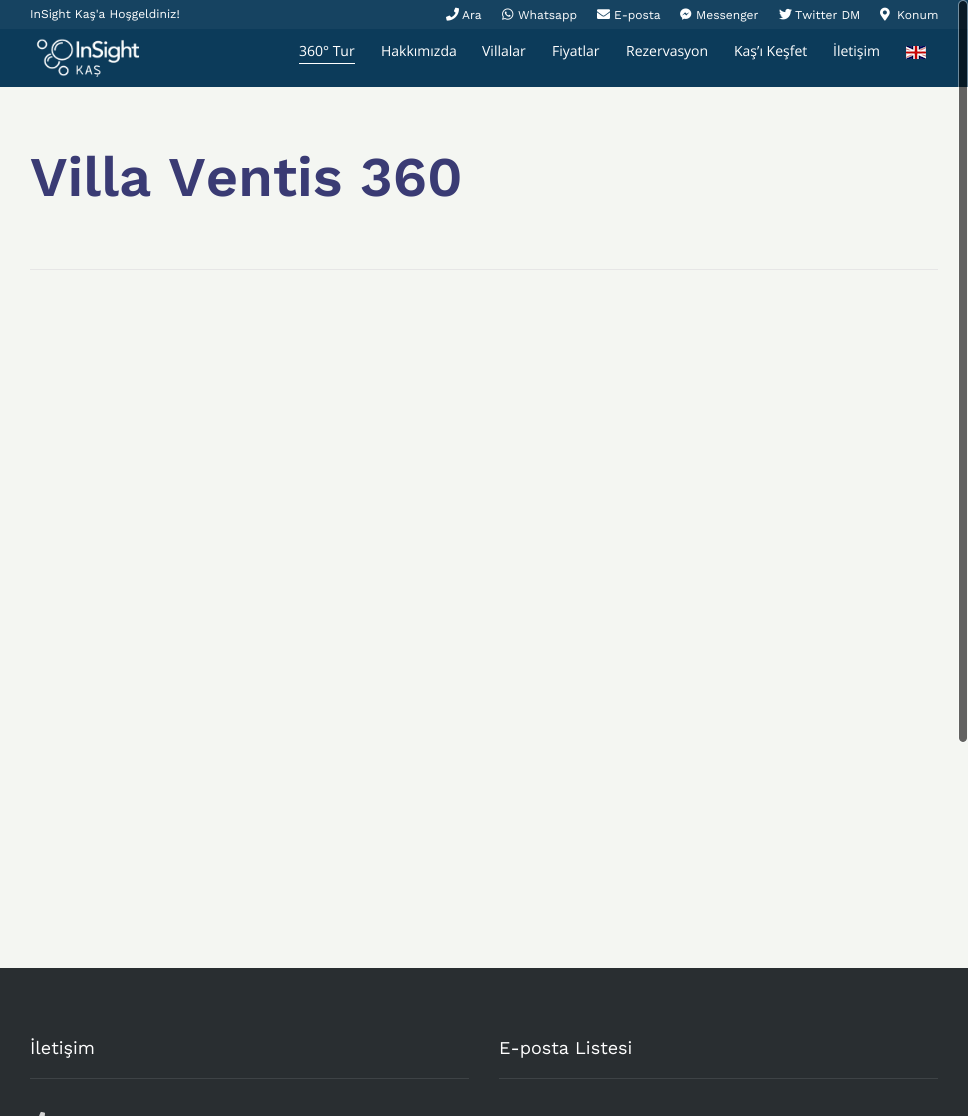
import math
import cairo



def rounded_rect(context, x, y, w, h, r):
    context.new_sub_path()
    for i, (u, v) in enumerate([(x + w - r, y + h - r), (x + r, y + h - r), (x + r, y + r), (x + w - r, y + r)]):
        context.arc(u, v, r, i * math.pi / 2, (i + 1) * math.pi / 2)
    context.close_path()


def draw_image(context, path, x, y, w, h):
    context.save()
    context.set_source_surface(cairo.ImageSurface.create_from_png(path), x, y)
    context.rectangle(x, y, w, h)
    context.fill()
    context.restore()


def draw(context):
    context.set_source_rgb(244 / 255, 246 / 255, 242 / 255)
    context.paint()
    context.set_source_rgb(12 / 255, 59 / 255, 90 / 255)
    context.rectangle(0, 29, 968, 58)
    context.fill()
    context.set_source_rgb(22 / 255, 67 / 255, 97 / 255)
    context.rectangle(0, 0, 968, 29)
    context.fill()
    draw_image(context, "images/1.png", 446, 7, 13, 14)
    draw_image(context, "images/2.png", 502, 8, 12, 12)
    draw_image(context, "images/3.png", 597, 9, 13, 10)
    draw_image(context, "images/4.png", 680, 8, 12, 12)
    draw_image(context, "images/5.png", 779, 8, 13, 12)
    draw_image(context, "images/6.png", 880, 7, 10, 14)
    draw_image(context, "images/7.png", 36, 38, 104, 39)
    context.set_source_rgb(1, 1, 1)
    context.rectangle(299, 63, 56, 1)
    context.fill()
    draw_image(context, "images/8.png", 906, 46, 20, 13)
    context.set_source_rgba(0, 0, 0, 0.6)
    rounded_rect(context, 959, 1, 8, 741, 4)
    context.fill()
    rounded_rect(context, 958.5, 0.5, 9, 742, 4.5)
    context.set_source_rgba(1, 1, 1, 0.4)
    context.set_line_width(1)
    context.stroke()
    context.set_source_rgb(230 / 255, 230 / 255, 230 / 255)
    context.rectangle(30, 269, 908, 1)
    context.fill()
    context.set_source_rgb(41 / 255, 46 / 255, 49 / 255)
    context.rectangle(0, 968, 968, 148)
    context.fill()
    context.set_source_rgb(62 / 255, 67 / 255, 70 / 255)
    context.rectangle(30, 1078, 439, 1)
    context.fill()
    draw_image(context, "images/9.png", 39, 1111, 6, 5)
    context.rectangle(499, 1078, 439, 1)
    context.fill()
    context.select_font_face("Work Sans")
    context.set_font_size(12)
    context.set_source_rgb(1, 1, 1)
    context.move_to(30, 18)
    context.show_text("InSight Kaş'a Hoşgeldiniz!")
    context.move_to(462, 19)
    context.show_text("Ara")
    context.move_to(518, 19)
    context.show_text("Whatsapp")
    context.move_to(614, 19)
    context.show_text("E-posta")
    context.move_to(696, 19)
    context.show_text("Messenger")
    context.move_to(795, 19)
    context.show_text("Twitter DM")
    context.move_to(897, 19)
    context.show_text("Konum")
    context.select_font_face("Open Sans")
    context.set_font_size(14)
    context.move_to(299, 56)
    context.show_text("360° Tur")
    context.move_to(381, 56)
    context.show_text("Hakkımızda")
    context.move_to(482, 56)
    context.show_text("Villalar")
    context.move_to(552, 56)
    context.show_text("Fiyatlar")
    context.move_to(626, 56)
    context.show_text("Rezervasyon")
    context.move_to(734, 56)
    context.show_text("Kaş’ı Keşfet")
    context.move_to(833, 56)
    context.show_text("İletişim")
    context.select_font_face("Work Sans SemiBold")
    context.set_font_size(56)
    context.set_source_rgb(58 / 255, 59 / 255, 116 / 255)
    context.move_to(30, 196)
    context.show_text("Villa Ventis 360")
    context.select_font_face("Work Sans")
    context.set_font_size(18)
    context.set_source_rgb(1, 1, 1)
    context.move_to(30, 1054)
    context.show_text("İletişim")
    context.move_to(499, 1054)
    context.show_text("E-posta Listesi")


surface = cairo.ImageSurface(cairo.Format.RGB24, 968, 1116)
context = cairo.Context(surface)
options = cairo.FontOptions()
options.set_hint_metrics(cairo.HintMetrics.OFF)
options.set_hint_style(cairo.HintStyle.NONE)
context.set_font_options(options)
context.set_miter_limit(4)
draw(context)
surface.write_to_png("out.png")
